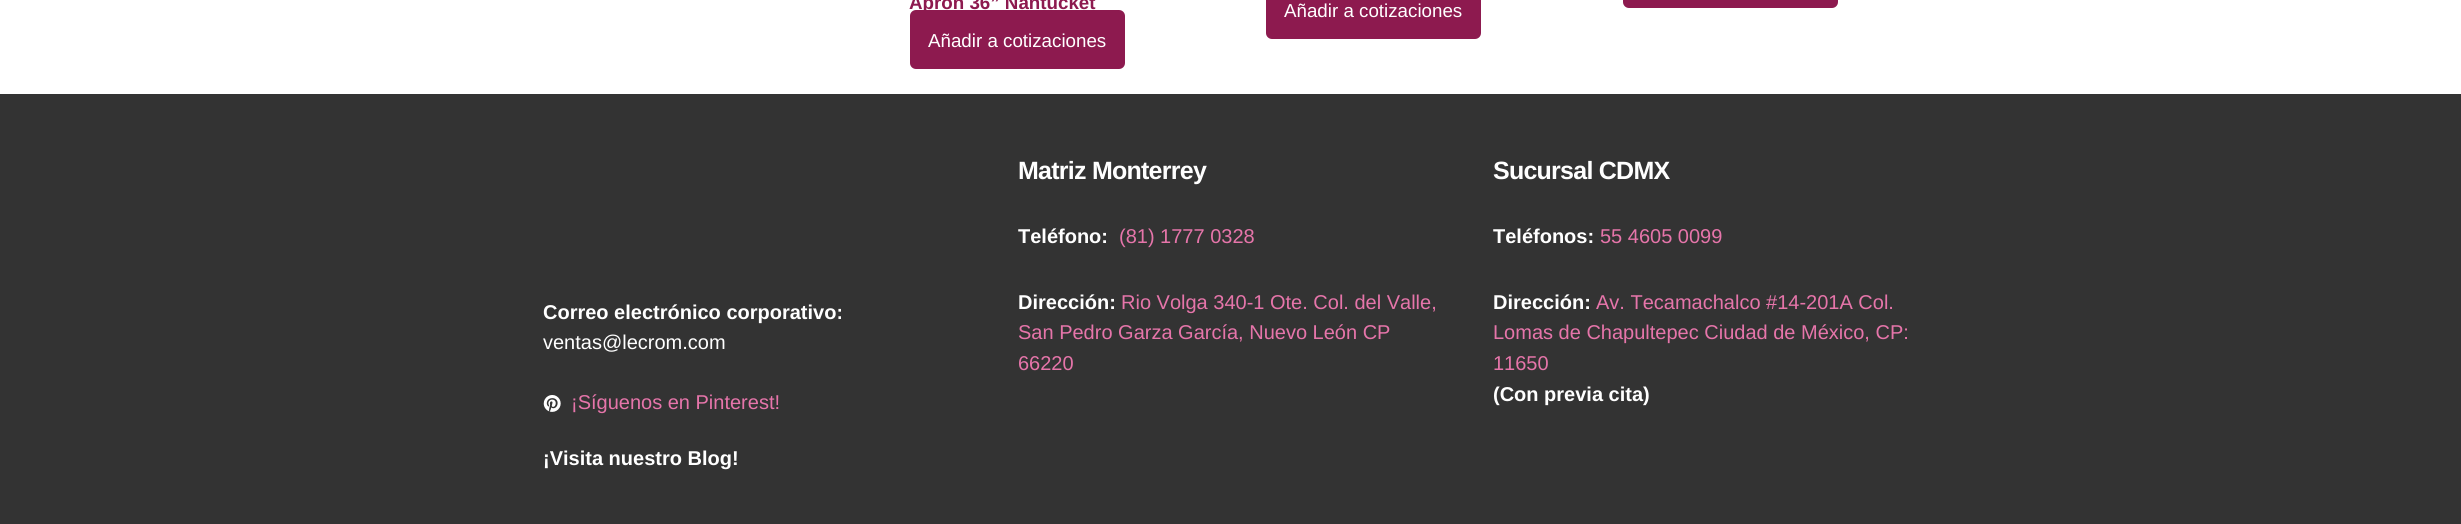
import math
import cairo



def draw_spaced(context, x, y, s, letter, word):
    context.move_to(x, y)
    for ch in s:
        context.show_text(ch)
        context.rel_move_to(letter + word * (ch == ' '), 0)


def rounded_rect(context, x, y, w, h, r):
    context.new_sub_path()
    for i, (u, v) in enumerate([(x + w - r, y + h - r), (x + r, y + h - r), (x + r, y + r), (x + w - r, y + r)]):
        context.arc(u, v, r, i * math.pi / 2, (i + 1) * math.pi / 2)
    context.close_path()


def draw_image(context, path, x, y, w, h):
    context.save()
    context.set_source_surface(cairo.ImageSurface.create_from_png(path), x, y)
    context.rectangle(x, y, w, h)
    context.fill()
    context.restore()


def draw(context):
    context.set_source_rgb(1, 1, 1)
    context.paint()
    context.set_source_rgb(141 / 255, 26 / 255, 79 / 255)
    rounded_rect(context, 910, 10, 215, 59, 6)
    context.fill()
    rounded_rect(context, 1266, -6, 215, 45, 6)
    context.fill()
    rounded_rect(context, 1623, -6, 215, 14, 6)
    context.fill()
    context.set_source_rgb(51 / 255, 51 / 255, 51 / 255)
    context.rectangle(0, 94, 2461, 430)
    context.fill()
    draw_image(context, "images/1.png", 543, 395, 18, 17)
    context.select_font_face("Liberation Sans", cairo.FontSlant.NORMAL, cairo.FontWeight.BOLD)
    context.set_font_size(18.75)
    context.set_source_rgb(141 / 255, 26 / 255, 79 / 255)
    context.move_to(909, 9)
    context.show_text("Apron 36” Nantucket")
    context.select_font_face("Liberation Sans")
    context.set_source_rgb(1, 1, 1)
    context.move_to(928, 47)
    context.show_text("Añadir a cotizaciones")
    context.move_to(1284, 17)
    context.show_text("Añadir a cotizaciones")
    context.select_font_face("Liberation Sans", cairo.FontSlant.NORMAL, cairo.FontWeight.BOLD)
    context.set_font_size(20)
    context.move_to(543, 319)
    context.show_text("Correo electrónico corporativo:")
    context.select_font_face("Liberation Sans")
    context.move_to(543, 349)
    context.show_text("ventas@lecrom.com")
    context.set_source_rgb(230 / 255, 117 / 255, 170 / 255)
    context.move_to(571, 409)
    context.show_text("¡Síguenos en Pinterest!")
    context.select_font_face("Liberation Sans", cairo.FontSlant.NORMAL, cairo.FontWeight.BOLD)
    context.set_source_rgb(1, 1, 1)
    context.move_to(543, 465)
    context.show_text("¡Visita nuestro Blog!")
    context.set_font_size(25)
    draw_spaced(context, 1018, 179, "Matriz Monterrey", -0.75, 0)
    context.set_font_size(20)
    context.move_to(1018, 243)
    context.show_text("Teléfono:")
    context.select_font_face("Liberation Sans")
    context.set_source_rgb(230 / 255, 117 / 255, 170 / 255)
    context.move_to(1119, 243)
    context.show_text("(81) 1777 0328")
    context.select_font_face("Liberation Sans", cairo.FontSlant.NORMAL, cairo.FontWeight.BOLD)
    context.set_source_rgb(1, 1, 1)
    context.move_to(1018, 309)
    context.show_text("Dirección:")
    context.select_font_face("Liberation Sans")
    context.set_source_rgb(230 / 255, 117 / 255, 170 / 255)
    context.move_to(1121, 309)
    context.show_text("Rio Volga 340-1 Ote. Col. del Valle,")
    context.move_to(1018, 339)
    context.show_text("San Pedro Garza García, Nuevo León CP")
    context.move_to(1018, 370)
    context.show_text("66220")
    context.select_font_face("Liberation Sans", cairo.FontSlant.NORMAL, cairo.FontWeight.BOLD)
    context.set_font_size(25)
    context.set_source_rgb(1, 1, 1)
    draw_spaced(context, 1493, 179, "Sucursal CDMX", -0.75, 0)
    context.set_font_size(20)
    context.move_to(1493, 243)
    context.show_text("Teléfonos:")
    context.select_font_face("Liberation Sans")
    context.set_source_rgb(230 / 255, 117 / 255, 170 / 255)
    context.move_to(1600, 243)
    context.show_text("55 4605 0099")
    context.select_font_face("Liberation Sans", cairo.FontSlant.NORMAL, cairo.FontWeight.BOLD)
    context.set_source_rgb(1, 1, 1)
    context.move_to(1493, 309)
    context.show_text("Dirección:")
    context.select_font_face("Liberation Sans")
    context.set_source_rgb(230 / 255, 117 / 255, 170 / 255)
    context.move_to(1596, 309)
    context.show_text("Av. Tecamachalco #14-201A Col.")
    context.move_to(1493, 339)
    context.show_text("Lomas de Chapultepec Ciudad de México, CP:")
    context.move_to(1493, 370)
    context.show_text("11650")
    context.select_font_face("Liberation Sans", cairo.FontSlant.NORMAL, cairo.FontWeight.BOLD)
    context.set_source_rgb(1, 1, 1)
    context.move_to(1493, 401)
    context.show_text("(Con previa cita)")


surface = cairo.ImageSurface(cairo.Format.RGB24, 2461, 524)
context = cairo.Context(surface)
options = cairo.FontOptions()
options.set_hint_metrics(cairo.HintMetrics.OFF)
options.set_hint_style(cairo.HintStyle.NONE)
context.set_font_options(options)
context.set_miter_limit(4)
draw(context)
surface.write_to_png("out.png")
